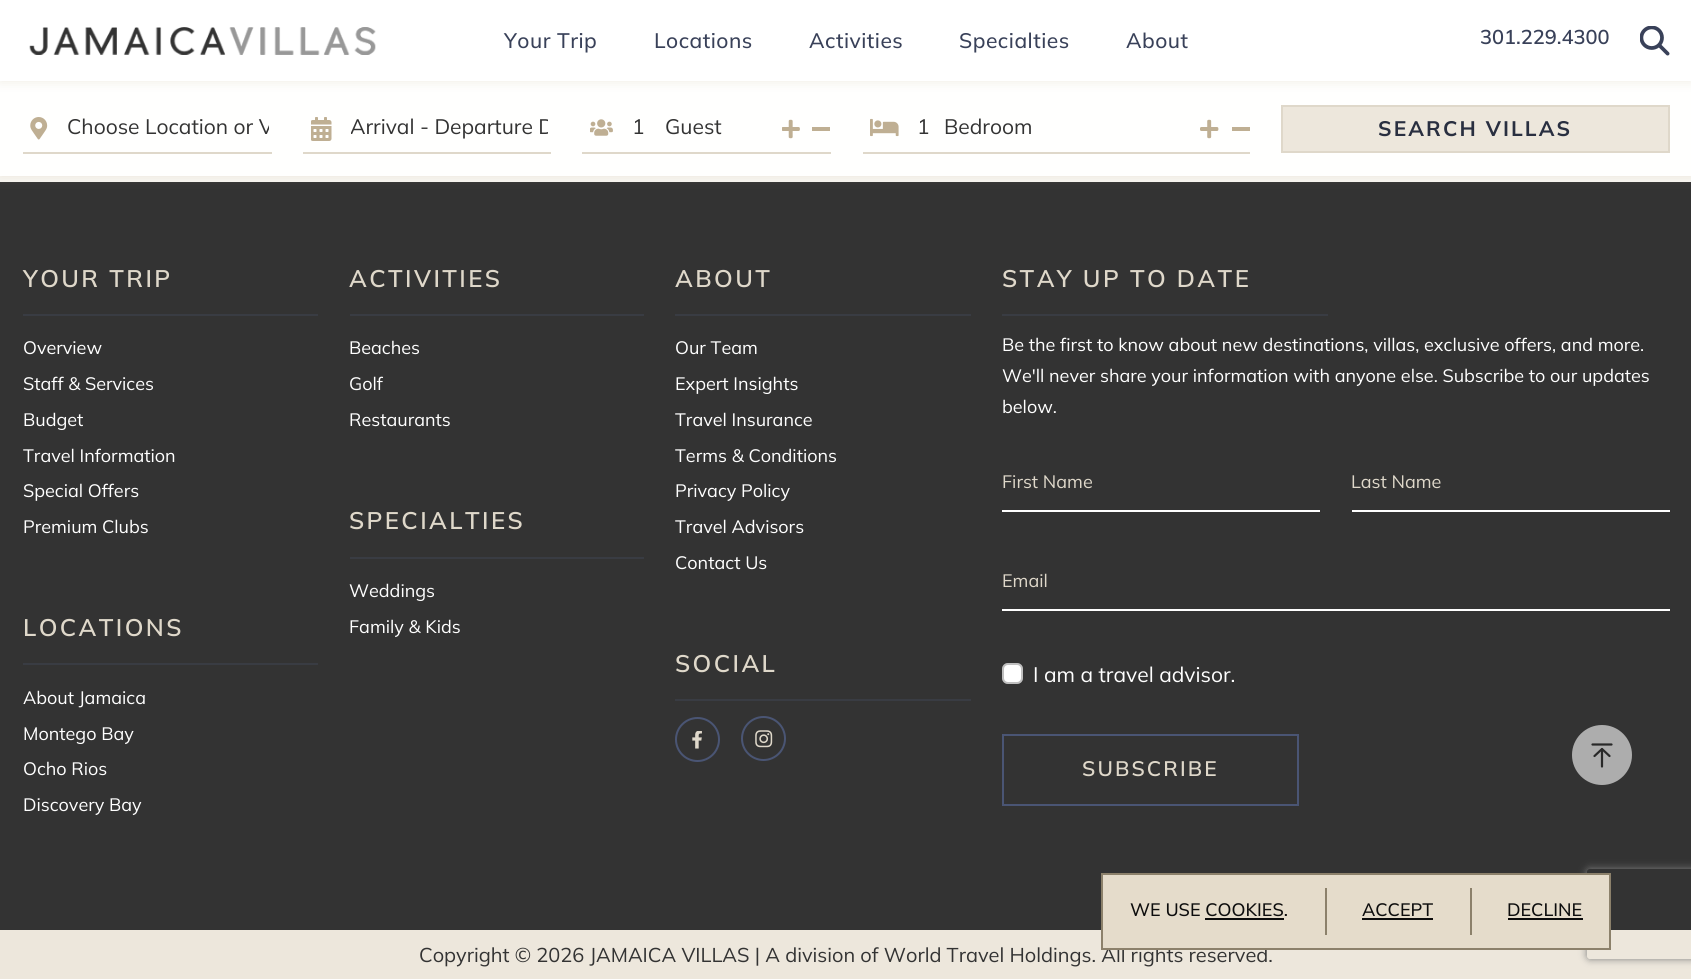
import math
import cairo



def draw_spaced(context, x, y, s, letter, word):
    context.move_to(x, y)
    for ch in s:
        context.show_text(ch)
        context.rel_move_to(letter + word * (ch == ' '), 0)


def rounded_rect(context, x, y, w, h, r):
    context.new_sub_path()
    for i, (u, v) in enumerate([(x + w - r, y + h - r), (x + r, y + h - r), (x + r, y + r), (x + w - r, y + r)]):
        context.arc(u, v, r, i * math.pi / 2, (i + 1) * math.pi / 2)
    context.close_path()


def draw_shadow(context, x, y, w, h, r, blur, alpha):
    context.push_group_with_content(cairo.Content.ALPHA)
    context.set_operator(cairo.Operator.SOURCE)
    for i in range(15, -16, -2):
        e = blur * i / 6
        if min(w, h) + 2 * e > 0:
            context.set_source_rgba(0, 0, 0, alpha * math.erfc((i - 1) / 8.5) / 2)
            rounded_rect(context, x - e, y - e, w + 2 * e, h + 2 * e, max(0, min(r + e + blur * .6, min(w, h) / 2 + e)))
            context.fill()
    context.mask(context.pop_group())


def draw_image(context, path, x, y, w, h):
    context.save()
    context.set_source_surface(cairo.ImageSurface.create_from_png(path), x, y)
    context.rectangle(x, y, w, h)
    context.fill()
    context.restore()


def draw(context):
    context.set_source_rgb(249 / 255, 247 / 255, 243 / 255)
    context.paint()
    context.set_source_rgb(51 / 255, 51 / 255, 51 / 255)
    context.rectangle(0, 182, 1691, 748)
    context.fill()
    context.save()
    context.set_fill_rule(cairo.FillRule.EVEN_ODD)
    context.new_path()
    context.move_to(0, 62)
    context.line_to(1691, 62)
    context.line_to(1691, 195)
    context.line_to(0, 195)
    context.close_path()
    context.move_to(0, 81)
    context.line_to(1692, 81)
    context.line_to(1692, 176)
    context.line_to(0, 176)
    context.close_path()
    context.clip()
    context.set_source_rgb(191 / 255, 175 / 255, 147 / 255)
    draw_shadow(context, 0, 81, 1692, 95, 0, 6, 0.25)
    context.restore()
    context.set_source_rgba(1, 1, 1, 0.95)
    context.rectangle(0, 81, 1691, 95)
    context.fill()
    context.set_source_rgb(191 / 255, 175 / 255, 147 / 255)
    draw_shadow(context, 0, 0, 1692, 81, 0, 6, 0.25)
    context.set_source_rgb(1, 1, 1)
    context.rectangle(0, 0, 1691, 81)
    context.fill()
    draw_image(context, "images/1.png", 29, 27, 347, 28)
    draw_image(context, "images/2.png", 1640, 26, 30, 30)
    context.set_source_rgb(223 / 255, 216 / 255, 202 / 255)
    context.rectangle(23, 152, 249, 2)
    context.fill()
    draw_image(context, "images/3.png", 30, 117, 18, 23)
    context.rectangle(303, 152, 248, 2)
    context.fill()
    draw_image(context, "images/4.png", 311, 117, 21, 24)
    context.rectangle(582, 152, 249, 2)
    context.fill()
    draw_image(context, "images/5.png", 590, 119, 23, 17)
    draw_image(context, "images/6.png", 782, 119, 18, 20)
    context.set_source_rgb(191 / 255, 175 / 255, 147 / 255)
    context.rectangle(812, 127, 18, 4)
    context.fill()
    context.set_source_rgb(223 / 255, 216 / 255, 202 / 255)
    context.rectangle(863, 152, 387, 2)
    context.fill()
    draw_image(context, "images/7.png", 870, 118, 29, 19)
    draw_image(context, "images/8.png", 1200, 119, 19, 20)
    context.set_source_rgb(191 / 255, 175 / 255, 147 / 255)
    context.rectangle(1232, 127, 18, 4)
    context.fill()
    context.set_source_rgb(237 / 255, 231 / 255, 220 / 255)
    context.rectangle(1282, 106, 387, 46)
    context.fill_preserve()
    context.set_source_rgb(223 / 255, 216 / 255, 202 / 255)
    context.stroke()
    context.set_source_rgb(57 / 255, 60 / 255, 67 / 255)
    context.rectangle(23, 314, 295, 2)
    context.fill()
    context.rectangle(23, 663, 295, 2)
    context.fill()
    context.rectangle(350, 314, 294, 2)
    context.fill()
    context.rectangle(350, 557, 294, 2)
    context.fill()
    context.rectangle(675, 314, 296, 2)
    context.fill()
    context.rectangle(675, 699, 296, 2)
    context.fill()
    context.arc(697.5, 739.5, 21.5, 0, 2 * math.pi)
    context.set_source_rgb(74 / 255, 85 / 255, 116 / 255)
    context.stroke()
    draw_image(context, "images/9.png", 692, 731, 10, 18)
    context.arc(763.5, 738.5, 21.5, 0, 2 * math.pi)
    context.stroke()
    draw_image(context, "images/10.png", 755, 730, 18, 18)
    context.set_source_rgb(57 / 255, 60 / 255, 67 / 255)
    context.rectangle(1002, 314, 326, 2)
    context.fill()
    context.set_source_rgb(1, 1, 1)
    context.rectangle(1002, 510, 318, 2)
    context.fill()
    context.rectangle(1352, 510, 318, 2)
    context.fill()
    context.rectangle(1002, 609, 668, 2)
    context.fill()
    rounded_rect(context, 1002, 663, 21, 21, 6)
    context.fill()
    rounded_rect(context, 1003, 664, 19, 19, 5)
    context.set_source_rgba(0, 0, 0, 0.25)
    context.stroke()
    context.rectangle(1003, 735, 295, 70)
    context.set_source_rgb(74 / 255, 85 / 255, 116 / 255)
    context.stroke()
    context.set_source_rgb(237 / 255, 231 / 255, 220 / 255)
    context.rectangle(0, 930, 1691, 49)
    context.fill()
    context.set_source_rgb(173 / 255, 173 / 255, 173 / 255)
    context.arc(1602, 755, 30, 0, 2 * math.pi)
    context.fill()
    context.new_path()
    context.move_to(1592.5, 744.5)
    context.line_to(1611.5, 744.5)
    context.set_source_rgb(40 / 255, 40 / 255, 40 / 255)
    context.set_line_width(2.2)
    context.set_line_cap(cairo.LineCap.ROUND)
    context.set_line_join(cairo.LineJoin.ROUND)
    context.stroke()
    context.new_path()
    context.move_to(1602, 766.5)
    context.line_to(1602, 749.5)
    context.set_line_join(cairo.LineJoin.MITER)
    context.stroke()
    context.new_path()
    context.move_to(1594.5, 756)
    context.line_to(1602, 749)
    context.line_to(1609.5, 756)
    context.set_line_join(cairo.LineJoin.ROUND)
    context.stroke()
    context.save()
    context.set_fill_rule(cairo.FillRule.EVEN_ODD)
    context.new_path()
    context.move_to(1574, 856)
    context.line_to(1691, 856)
    context.line_to(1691, 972)
    context.line_to(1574, 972)
    context.close_path()
    context.move_to(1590, 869)
    context.line_to(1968, 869)
    context.curve_to(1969.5, 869, 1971, 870.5, 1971, 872)
    context.line_to(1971, 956)
    context.curve_to(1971, 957.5, 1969.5, 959, 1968, 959)
    context.line_to(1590, 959)
    context.curve_to(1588.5, 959, 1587, 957.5, 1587, 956)
    context.line_to(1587, 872)
    context.curve_to(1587, 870.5, 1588.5, 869, 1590, 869)
    context.close_path()
    context.clip()
    context.set_source_rgb(128 / 255, 128 / 255, 128 / 255)
    draw_shadow(context, 1587, 869, 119, 90, 3, 4, 1)
    context.restore()
    context.select_font_face("Mulish Medium")
    context.set_font_size(21)
    context.set_source_rgb(57 / 255, 65 / 255, 89 / 255)
    draw_spaced(context, 504, 48, "Your Trip", 0.5, 0)
    draw_spaced(context, 654, 48, "Locations", 0.5, 0)
    draw_spaced(context, 809, 48, "Activities", 0.5, 0)
    draw_spaced(context, 959, 48, "Specialties", 0.5, 0)
    draw_spaced(context, 1126, 48, "About", 0.5, 0)
    context.select_font_face("Mulish SemiBold")
    context.set_font_size(20)
    context.move_to(1480, 44)
    context.show_text("301.229.4300")
    context.save()
    context.rectangle(68, 113, 201, 27)
    context.clip()
    context.select_font_face("Mulish")
    context.set_font_size(21)
    context.set_source_rgb(51 / 255, 51 / 255, 51 / 255)
    context.move_to(67, 134)
    context.show_text("Choose Location or V")
    context.restore()
    context.save()
    context.rectangle(351, 113, 197, 27)
    context.clip()
    context.select_font_face("Mulish")
    context.set_font_size(21)
    context.set_source_rgb(51 / 255, 51 / 255, 51 / 255)
    context.move_to(350, 134)
    context.show_text("Arrival - Departure D")
    context.restore()
    context.select_font_face("Mulish")
    context.set_font_size(21)
    context.set_source_rgb(51 / 255, 51 / 255, 51 / 255)
    context.move_to(632, 134)
    context.show_text("1")
    context.move_to(665, 134)
    context.show_text("Guest")
    context.move_to(917, 134)
    context.show_text("1")
    context.move_to(944, 134)
    context.show_text("Bedroom")
    context.select_font_face("Mulish", cairo.FontSlant.NORMAL, cairo.FontWeight.BOLD)
    context.set_source_rgb(41 / 255, 47 / 255, 64 / 255)
    draw_spaced(context, 1378, 136, "SEARCH VILLAS", 2.1, 0)
    context.select_font_face("Mulish SemiBold")
    context.set_font_size(24)
    context.set_source_rgb(223 / 255, 216 / 255, 202 / 255)
    draw_spaced(context, 23, 287, "YOUR TRIP", 2.4, 0)
    context.select_font_face("Mulish")
    context.set_font_size(18)
    context.set_source_rgb(1, 1, 1)
    context.move_to(23, 354)
    context.show_text("Overview")
    context.move_to(23, 390)
    context.show_text("Staff & Services")
    context.move_to(23, 426)
    context.show_text("Budget")
    context.move_to(23, 462)
    context.show_text("Travel Information")
    context.move_to(23, 497)
    context.show_text("Special Offers")
    context.move_to(23, 533)
    context.show_text("Premium Clubs")
    context.select_font_face("Mulish SemiBold")
    context.set_font_size(24)
    context.set_source_rgb(223 / 255, 216 / 255, 202 / 255)
    draw_spaced(context, 23, 636, "LOCATIONS", 2.4, 0)
    context.select_font_face("Mulish")
    context.set_font_size(18)
    context.set_source_rgb(1, 1, 1)
    context.move_to(23, 704)
    context.show_text("About Jamaica")
    context.move_to(23, 740)
    context.show_text("Montego Bay")
    context.move_to(23, 775)
    context.show_text("Ocho Rios")
    context.move_to(23, 811)
    context.show_text("Discovery Bay")
    context.select_font_face("Mulish SemiBold")
    context.set_font_size(24)
    context.set_source_rgb(223 / 255, 216 / 255, 202 / 255)
    draw_spaced(context, 349, 287, "ACTIVITIES", 2.4, 0)
    context.select_font_face("Mulish")
    context.set_font_size(18)
    context.set_source_rgb(1, 1, 1)
    context.move_to(349, 354)
    context.show_text("Beaches")
    context.move_to(349, 390)
    context.show_text("Golf")
    context.move_to(349, 426)
    context.show_text("Restaurants")
    context.select_font_face("Mulish SemiBold")
    context.set_font_size(24)
    context.set_source_rgb(223 / 255, 216 / 255, 202 / 255)
    draw_spaced(context, 349, 529, "SPECIALTIES", 2.4, 0)
    context.select_font_face("Mulish")
    context.set_font_size(18)
    context.set_source_rgb(1, 1, 1)
    context.move_to(349, 597)
    context.show_text("Weddings")
    context.move_to(349, 633)
    context.show_text("Family & Kids")
    context.select_font_face("Mulish SemiBold")
    context.set_font_size(24)
    context.set_source_rgb(223 / 255, 216 / 255, 202 / 255)
    draw_spaced(context, 675, 287, "ABOUT", 2.4, 0)
    context.select_font_face("Mulish")
    context.set_font_size(18)
    context.set_source_rgb(1, 1, 1)
    context.move_to(675, 354)
    context.show_text("Our Team")
    context.move_to(675, 390)
    context.show_text("Expert Insights")
    context.move_to(675, 426)
    context.show_text("Travel Insurance")
    context.move_to(675, 462)
    context.show_text("Terms & Conditions")
    context.move_to(675, 497)
    context.show_text("Privacy Policy")
    context.move_to(675, 533)
    context.show_text("Travel Advisors")
    context.move_to(675, 569)
    context.show_text("Contact Us")
    context.select_font_face("Mulish SemiBold")
    context.set_font_size(24)
    context.set_source_rgb(223 / 255, 216 / 255, 202 / 255)
    draw_spaced(context, 675, 672, "SOCIAL", 2.4, 0)
    draw_spaced(context, 1002, 287, "STAY UP TO DATE", 2.4, 0)
    context.select_font_face("Mulish")
    context.set_font_size(18)
    context.set_source_rgb(1, 1, 1)
    context.move_to(1002, 351)
    context.show_text("Be the first to know about new destinations, villas, exclusive offers, and more.")
    context.move_to(1002, 382)
    context.show_text("We'll never share your information with anyone else. Subscribe to our updates")
    context.move_to(1002, 413)
    context.show_text("below.")
    context.set_source_rgb(223 / 255, 216 / 255, 202 / 255)
    context.move_to(1002, 488)
    context.show_text("First Name")
    context.move_to(1351, 488)
    context.show_text("Last Name")
    context.move_to(1002, 587)
    context.show_text("Email")
    context.set_font_size(21)
    context.set_source_rgb(1, 1, 1)
    context.move_to(1033, 682)
    context.show_text("I am a travel advisor.")
    context.select_font_face("Mulish SemiBold")
    context.set_source_rgb(223 / 255, 216 / 255, 202 / 255)
    draw_spaced(context, 1082, 776, "SUBSCRIBE", 2.1, 0)
    context.select_font_face("Mulish")
    context.set_font_size(20)
    context.set_source_rgb(51 / 255, 51 / 255, 51 / 255)
    context.move_to(419, 962)
    context.show_text("Copyright © 2026 JAMAICA VILLAS | A division of World Travel Holdings. All rights reserved.")
    context.set_source_rgb(229 / 255, 220 / 255, 203 / 255)
    context.rectangle(1102, 874, 508, 75)
    context.fill_preserve()
    context.set_source_rgb(140 / 255, 129 / 255, 107 / 255)
    context.set_line_width(2)
    context.set_line_cap(cairo.LineCap.BUTT)
    context.set_line_join(cairo.LineJoin.MITER)
    context.stroke()
    context.select_font_face("Mulish Medium")
    context.set_font_size(18)
    context.set_source_rgb(13 / 255, 13 / 255, 13 / 255)
    context.move_to(1507, 916)
    context.show_text("DECLINE")
    context.rectangle(1508, 918, 75, 2)
    context.fill()
    context.set_source_rgb(140 / 255, 129 / 255, 107 / 255)
    context.rectangle(1470, 888, 2, 47)
    context.fill()
    context.set_source_rgb(13 / 255, 13 / 255, 13 / 255)
    context.move_to(1362, 916)
    context.show_text("ACCEPT")
    context.rectangle(1362, 918, 71, 2)
    context.fill()
    context.set_source_rgb(140 / 255, 129 / 255, 107 / 255)
    context.rectangle(1325, 888, 2, 47)
    context.fill()
    context.set_source_rgb(13 / 255, 13 / 255, 13 / 255)
    context.rectangle(1205, 918, 79, 2)
    context.fill()
    context.move_to(1130, 916)
    context.show_text("WE USE COOKIES.")


surface = cairo.ImageSurface(cairo.Format.RGB24, 1691, 979)
context = cairo.Context(surface)
options = cairo.FontOptions()
options.set_hint_metrics(cairo.HintMetrics.OFF)
options.set_hint_style(cairo.HintStyle.NONE)
context.set_font_options(options)
context.set_miter_limit(4)
draw(context)
surface.write_to_png("out.png")
